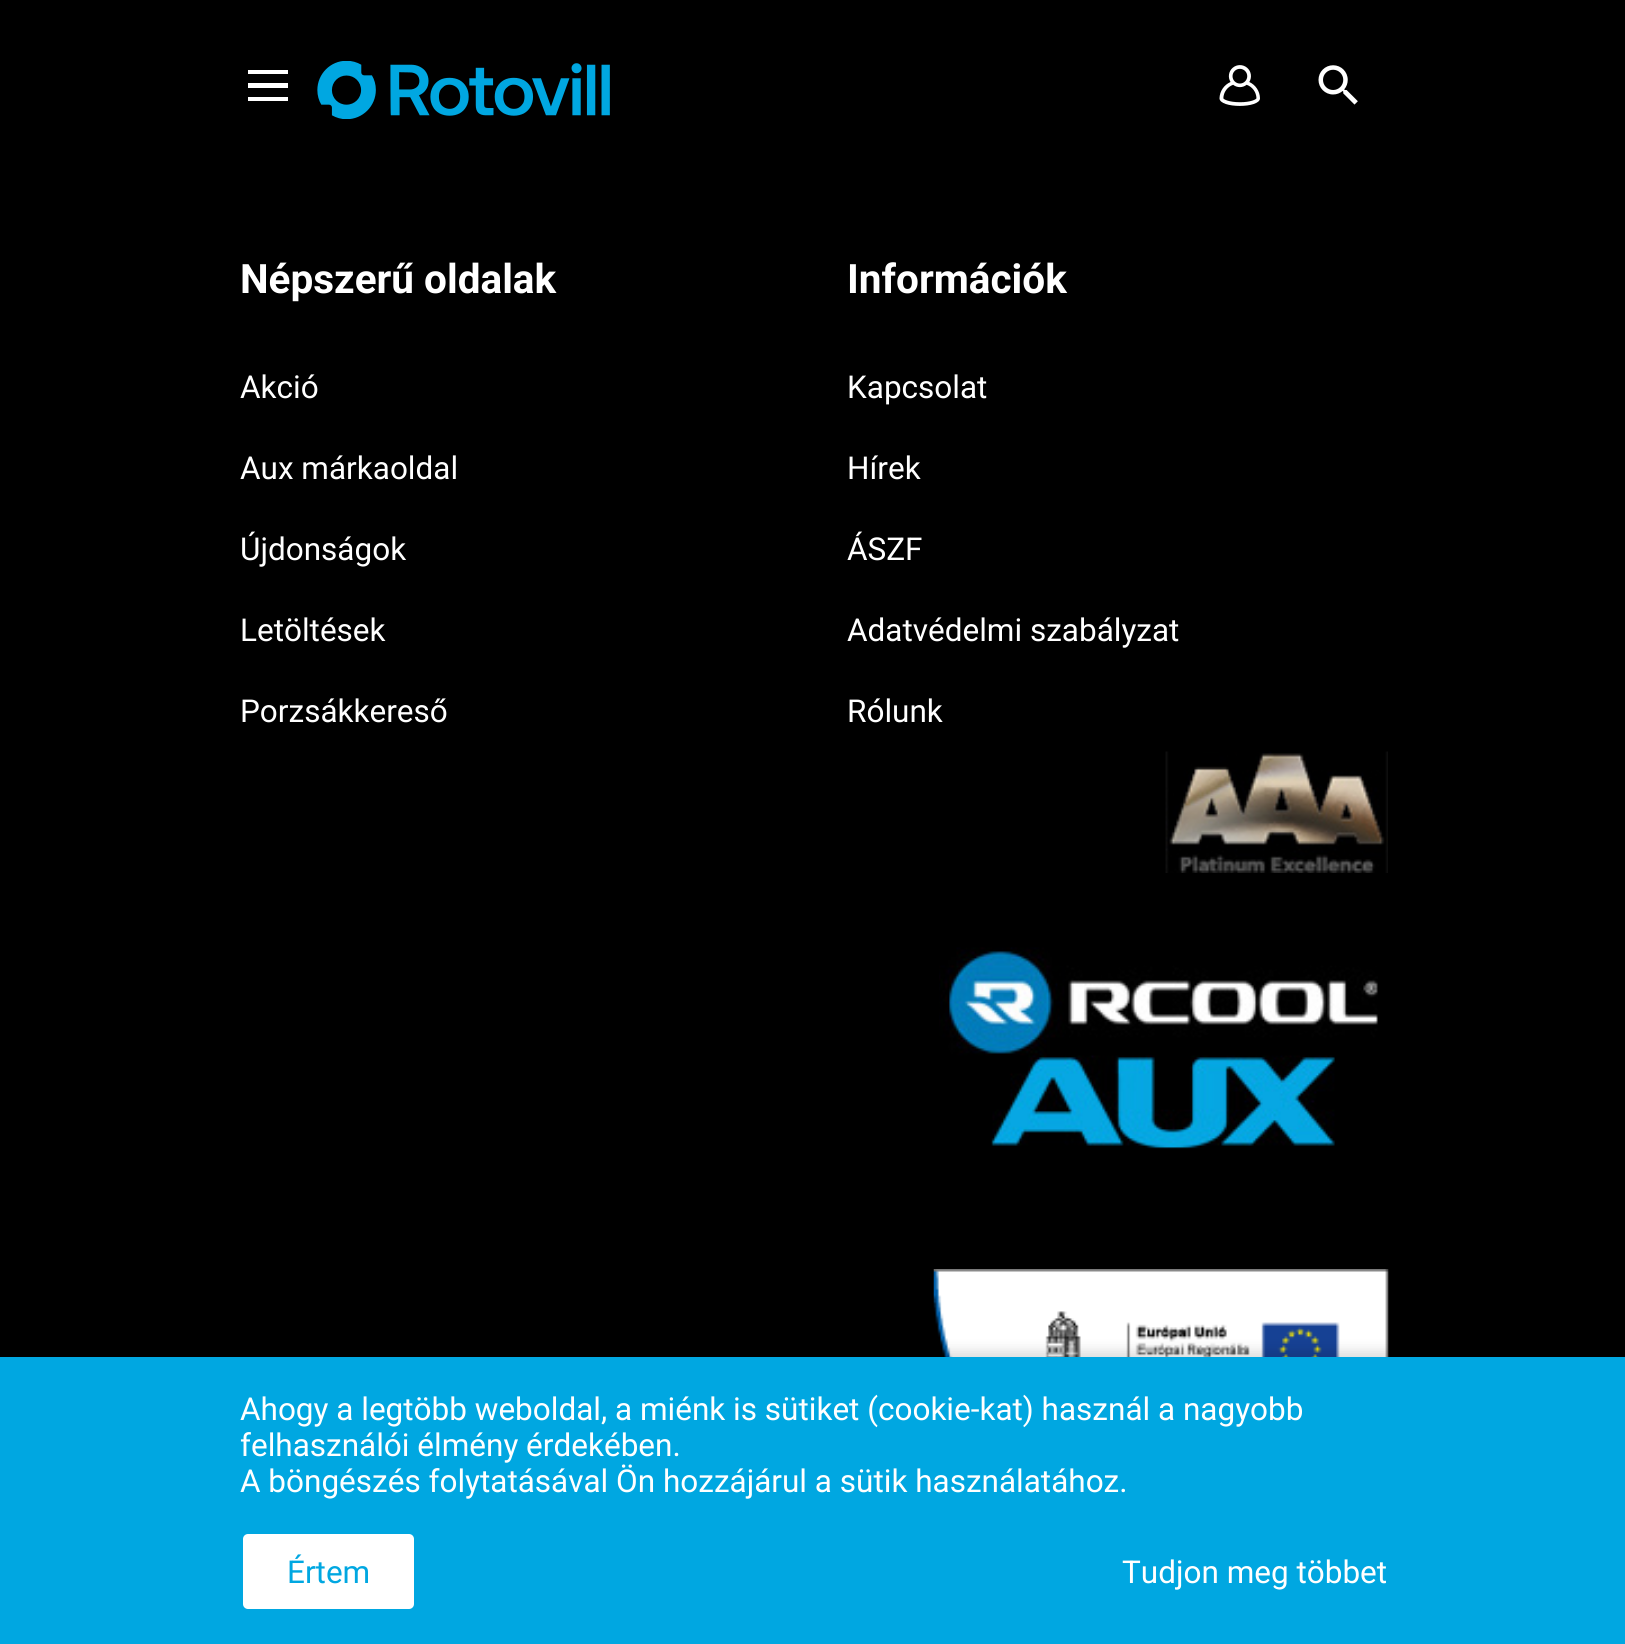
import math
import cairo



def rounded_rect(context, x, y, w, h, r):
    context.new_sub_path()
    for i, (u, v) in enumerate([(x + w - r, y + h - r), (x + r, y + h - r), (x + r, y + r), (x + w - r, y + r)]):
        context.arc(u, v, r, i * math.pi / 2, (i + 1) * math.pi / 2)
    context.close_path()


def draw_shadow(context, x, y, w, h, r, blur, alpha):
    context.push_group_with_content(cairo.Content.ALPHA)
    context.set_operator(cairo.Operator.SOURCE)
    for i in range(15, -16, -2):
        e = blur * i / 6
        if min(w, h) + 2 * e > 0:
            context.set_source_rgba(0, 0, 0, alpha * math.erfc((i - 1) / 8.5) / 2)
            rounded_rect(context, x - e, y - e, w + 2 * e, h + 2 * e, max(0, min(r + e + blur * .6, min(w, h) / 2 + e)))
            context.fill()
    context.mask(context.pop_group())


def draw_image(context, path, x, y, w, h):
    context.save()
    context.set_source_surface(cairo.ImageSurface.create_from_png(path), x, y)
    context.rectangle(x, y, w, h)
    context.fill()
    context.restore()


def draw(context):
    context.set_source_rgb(0, 0, 0)
    context.paint()
    context.set_source_rgb(1, 1, 1)
    context.new_path()
    context.move_to(248, 70)
    context.line_to(288, 70)
    context.line_to(288, 74)
    context.line_to(248, 74)
    context.close_path()
    context.move_to(248, 83)
    context.line_to(288, 83)
    context.line_to(288, 88)
    context.line_to(248, 88)
    context.close_path()
    context.move_to(248, 97)
    context.line_to(288, 97)
    context.line_to(288, 101)
    context.line_to(248, 101)
    context.close_path()
    context.fill()
    draw_image(context, "images/1.png", 317, 61, 293, 58)
    draw_image(context, "images/2.png", 1219, 65, 41, 41)
    draw_image(context, "images/3.png", 1318, 65, 40, 40)
    draw_image(context, "images/4.png", 1165, 751, 223, 122)
    draw_image(context, "images/5.png", 939, 947, 439, 202)
    draw_image(context, "images/6.png", 933, 1269, 456, 88)
    context.set_source_rgb(0, 0, 0)
    draw_shadow(context, 0, 1352, 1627, 288, 0, 7, 0.15)
    context.set_source_rgb(0, 167 / 255, 225 / 255)
    context.rectangle(0, 1357, 1625, 287)
    context.fill()
    context.set_source_rgb(1, 1, 1)
    rounded_rect(context, 242, 1533, 173, 77, 6)
    context.fill_preserve()
    context.set_source_rgb(0, 167 / 255, 225 / 255)
    context.stroke()
    context.select_font_face("Roboto", cairo.FontSlant.NORMAL, cairo.FontWeight.BOLD)
    context.set_font_size(40.5)
    context.set_source_rgb(1, 1, 1)
    context.move_to(240, 293)
    context.show_text("Népszerű oldalak")
    context.select_font_face("Roboto")
    context.set_font_size(31.5)
    context.move_to(240, 398)
    context.show_text("Akció")
    context.move_to(240, 479)
    context.show_text("Aux márkaoldal")
    context.move_to(240, 560)
    context.show_text("Újdonságok")
    context.move_to(240, 641)
    context.show_text("Letöltések")
    context.move_to(240, 722)
    context.show_text("Porzsákkereső")
    context.select_font_face("Roboto", cairo.FontSlant.NORMAL, cairo.FontWeight.BOLD)
    context.set_font_size(40.5)
    context.move_to(847, 293)
    context.show_text("Információk")
    context.select_font_face("Roboto")
    context.set_font_size(31.5)
    context.move_to(847, 398)
    context.show_text("Kapcsolat")
    context.move_to(847, 479)
    context.show_text("Hírek")
    context.move_to(847, 560)
    context.show_text("ÁSZF")
    context.move_to(847, 641)
    context.show_text("Adatvédelmi szabályzat")
    context.move_to(847, 722)
    context.show_text("Rólunk")
    context.move_to(240, 1420)
    context.show_text("Ahogy a legtöbb weboldal, a miénk is sütiket (cookie-kat) használ a nagyobb")
    context.move_to(240, 1456)
    context.show_text("felhasználói élmény érdekében.")
    context.move_to(240, 1492)
    context.show_text("A böngészés folytatásával Ön hozzájárul a sütik használatához.")
    context.set_source_rgb(0, 167 / 255, 225 / 255)
    context.move_to(287, 1583)
    context.show_text("Értem")
    context.set_source_rgb(1, 1, 1)
    context.move_to(1122, 1583)
    context.show_text("Tudjon meg többet")


surface = cairo.ImageSurface(cairo.Format.RGB24, 1625, 1644)
context = cairo.Context(surface)
options = cairo.FontOptions()
options.set_hint_metrics(cairo.HintMetrics.OFF)
options.set_hint_style(cairo.HintStyle.NONE)
context.set_font_options(options)
context.set_miter_limit(4)
draw(context)
surface.write_to_png("out.png")
